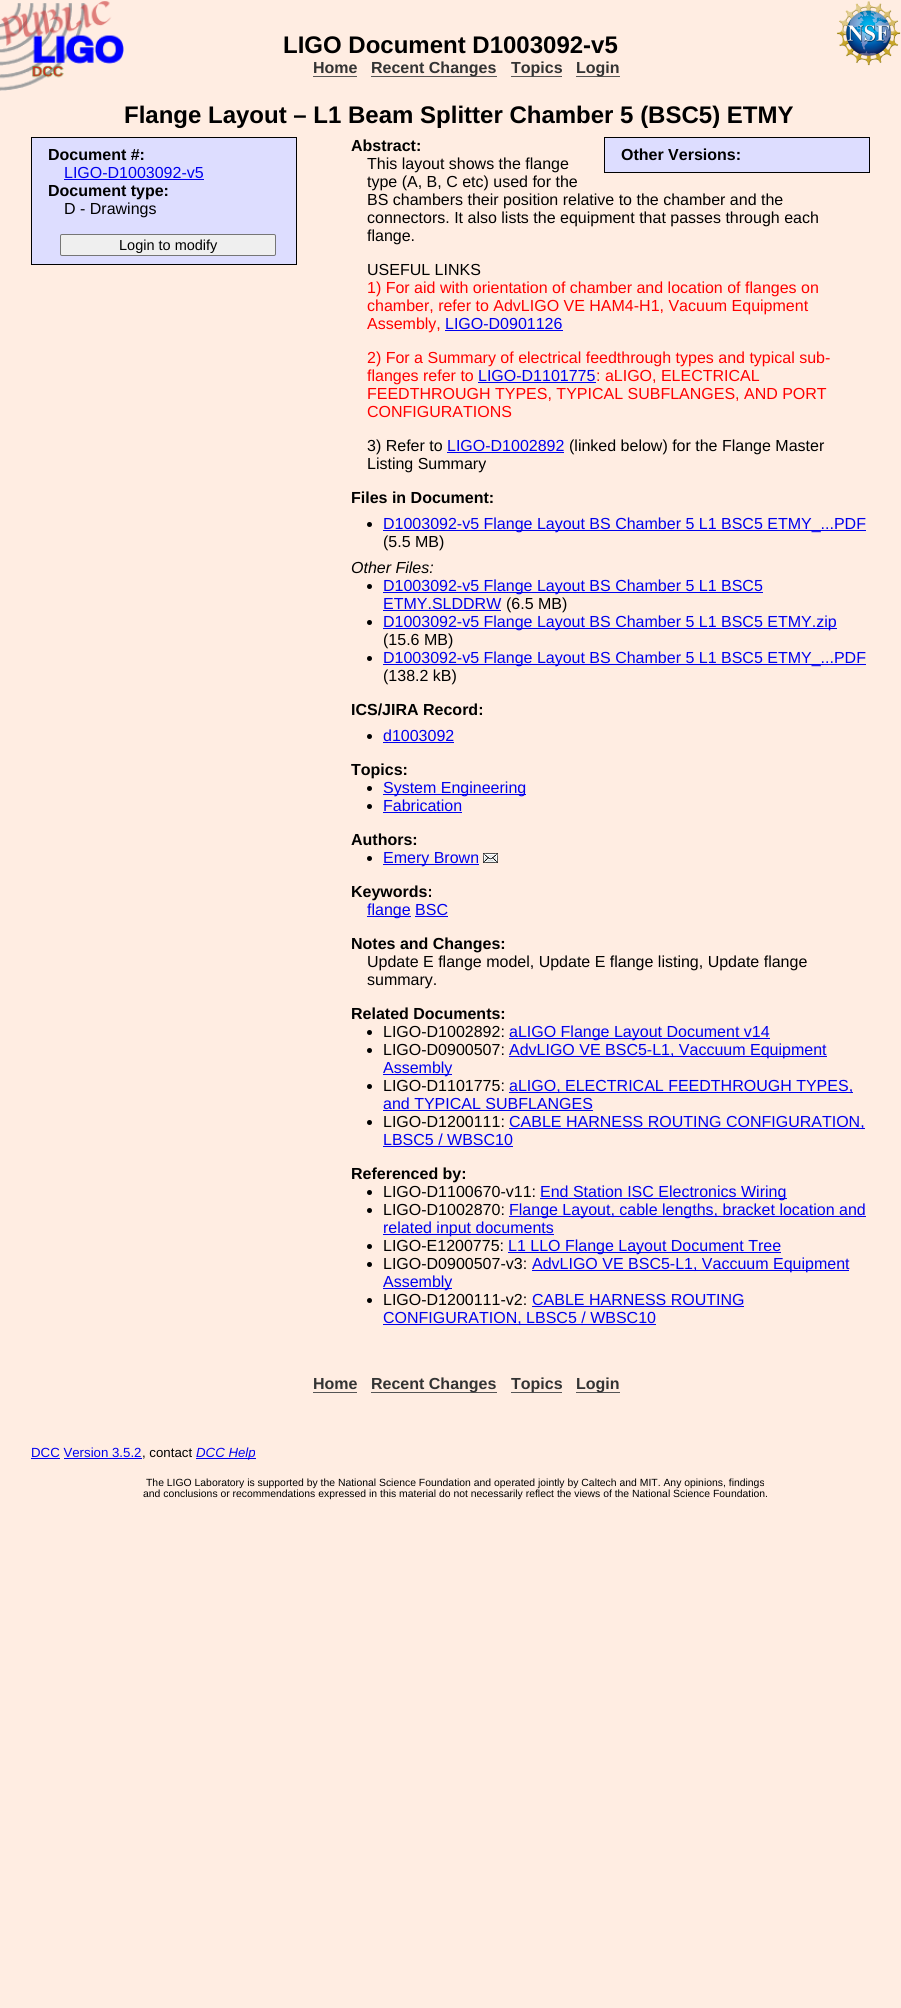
import math
import cairo



def rounded_rect(context, x, y, w, h, r):
    context.new_sub_path()
    for i, (u, v) in enumerate([(x + w - r, y + h - r), (x + r, y + h - r), (x + r, y + r), (x + w - r, y + r)]):
        context.arc(u, v, r, i * math.pi / 2, (i + 1) * math.pi / 2)
    context.close_path()


def draw_image(context, path, x, y, w, h):
    context.save()
    context.set_source_surface(cairo.ImageSurface.create_from_png(path), x, y)
    context.rectangle(x, y, w, h)
    context.fill()
    context.restore()


def draw(context):
    context.set_source_rgb(1, 237 / 255, 226 / 255)
    context.paint()
    draw_image(context, "images/1.png", 0, 1, 901, 90)
    context.set_source_rgb(85 / 255, 85 / 255, 85 / 255)
    context.rectangle(313, 76, 44, 1)
    context.fill()
    context.rectangle(371, 76, 126, 1)
    context.fill()
    context.rectangle(511, 76, 51, 1)
    context.fill()
    context.rectangle(576, 76, 44, 1)
    context.fill()
    context.set_source_rgb(221 / 255, 221 / 255, 1)
    context.rectangle(31.5, 137.5, 265, 127)
    context.fill_preserve()
    context.set_source_rgb(0, 0, 0)
    context.set_line_width(1)
    context.stroke()
    context.set_source_rgb(0, 0, 238 / 255)
    context.rectangle(64, 179, 140, 1)
    context.fill()
    context.set_source_rgb(239 / 255, 239 / 255, 239 / 255)
    rounded_rect(context, 60.5, 234.5, 215, 21, 1.5)
    context.fill_preserve()
    context.set_source_rgb(118 / 255, 118 / 255, 118 / 255)
    context.stroke()
    context.set_source_rgb(0, 0, 238 / 255)
    context.rectangle(445, 330, 118, 1)
    context.fill()
    context.rectangle(478, 382, 118, 1)
    context.fill()
    context.rectangle(447, 452, 117, 1)
    context.fill()
    context.set_source_rgb(221 / 255, 221 / 255, 1)
    context.rectangle(604.5, 137.5, 265, 35)
    context.fill_preserve()
    context.set_source_rgb(0, 0, 0)
    context.stroke()
    context.arc(369.5, 524.5, 2.5, 0, 2 * math.pi)
    context.fill()
    context.set_source_rgb(0, 0, 238 / 255)
    context.rectangle(383, 530, 483, 1)
    context.fill()
    context.set_source_rgb(0, 0, 0)
    context.arc(369.5, 586.5, 2.5, 0, 2 * math.pi)
    context.fill()
    context.set_source_rgb(0, 0, 238 / 255)
    context.rectangle(383, 592, 380, 1)
    context.fill()
    context.rectangle(383, 610, 118, 1)
    context.fill()
    context.set_source_rgb(0, 0, 0)
    context.arc(369.5, 622.5, 2.5, 0, 2 * math.pi)
    context.fill()
    context.set_source_rgb(0, 0, 238 / 255)
    context.rectangle(383, 628, 454, 1)
    context.fill()
    context.set_source_rgb(0, 0, 0)
    context.arc(369.5, 658.5, 2.5, 0, 2 * math.pi)
    context.fill()
    context.set_source_rgb(0, 0, 238 / 255)
    context.rectangle(383, 664, 483, 1)
    context.fill()
    context.set_source_rgb(0, 0, 0)
    context.arc(369.5, 736.5, 2.5, 0, 2 * math.pi)
    context.fill()
    context.set_source_rgb(0, 0, 238 / 255)
    context.rectangle(383, 742, 71, 1)
    context.fill()
    context.set_source_rgb(0, 0, 0)
    context.arc(369.5, 788.5, 2.5, 0, 2 * math.pi)
    context.fill()
    context.set_source_rgb(0, 0, 238 / 255)
    context.rectangle(383, 794, 143, 1)
    context.fill()
    context.set_source_rgb(0, 0, 0)
    context.arc(369.5, 806.5, 2.5, 0, 2 * math.pi)
    context.fill()
    context.set_source_rgb(0, 0, 238 / 255)
    context.rectangle(383, 812, 79, 1)
    context.fill()
    context.set_source_rgb(0, 0, 0)
    context.arc(369.5, 858.5, 2.5, 0, 2 * math.pi)
    context.fill()
    context.set_source_rgb(0, 0, 238 / 255)
    context.rectangle(383, 864, 96, 1)
    context.fill()
    draw_image(context, "images/2.png", 483, 853, 15, 10)
    context.rectangle(367, 916, 44, 1)
    context.fill()
    context.rectangle(415, 916, 33, 1)
    context.fill()
    context.set_source_rgb(0, 0, 0)
    context.arc(369.5, 1032.5, 2.5, 0, 2 * math.pi)
    context.fill()
    context.set_source_rgb(0, 0, 238 / 255)
    context.rectangle(509, 1038, 261, 1)
    context.fill()
    context.set_source_rgb(0, 0, 0)
    context.arc(369.5, 1050.5, 2.5, 0, 2 * math.pi)
    context.fill()
    context.set_source_rgb(0, 0, 238 / 255)
    context.rectangle(509, 1056, 318, 1)
    context.fill()
    context.rectangle(383, 1074, 69, 1)
    context.fill()
    context.set_source_rgb(0, 0, 0)
    context.arc(369.5, 1086.5, 2.5, 0, 2 * math.pi)
    context.fill()
    context.set_source_rgb(0, 0, 238 / 255)
    context.rectangle(509, 1092, 344, 1)
    context.fill()
    context.rectangle(383, 1110, 210, 1)
    context.fill()
    context.set_source_rgb(0, 0, 0)
    context.arc(369.5, 1122.5, 2.5, 0, 2 * math.pi)
    context.fill()
    context.set_source_rgb(0, 0, 238 / 255)
    context.rectangle(509, 1128, 356, 1)
    context.fill()
    context.rectangle(383, 1146, 130, 1)
    context.fill()
    context.set_source_rgb(0, 0, 0)
    context.arc(369.5, 1192.5, 2.5, 0, 2 * math.pi)
    context.fill()
    context.set_source_rgb(0, 0, 238 / 255)
    context.rectangle(540, 1198, 247, 1)
    context.fill()
    context.set_source_rgb(0, 0, 0)
    context.arc(369.5, 1210.5, 2.5, 0, 2 * math.pi)
    context.fill()
    context.set_source_rgb(0, 0, 238 / 255)
    context.rectangle(509, 1216, 357, 1)
    context.fill()
    context.rectangle(383, 1234, 171, 1)
    context.fill()
    context.set_source_rgb(0, 0, 0)
    context.arc(369.5, 1246.5, 2.5, 0, 2 * math.pi)
    context.fill()
    context.set_source_rgb(0, 0, 238 / 255)
    context.rectangle(508, 1252, 273, 1)
    context.fill()
    context.set_source_rgb(0, 0, 0)
    context.arc(369.5, 1264.5, 2.5, 0, 2 * math.pi)
    context.fill()
    context.set_source_rgb(0, 0, 238 / 255)
    context.rectangle(532, 1270, 317, 1)
    context.fill()
    context.rectangle(383, 1288, 69, 1)
    context.fill()
    context.set_source_rgb(0, 0, 0)
    context.arc(369.5, 1300.5, 2.5, 0, 2 * math.pi)
    context.fill()
    context.set_source_rgb(0, 0, 238 / 255)
    context.rectangle(532, 1306, 212, 1)
    context.fill()
    context.rectangle(383, 1324, 273, 1)
    context.fill()
    context.set_source_rgb(85 / 255, 85 / 255, 85 / 255)
    context.rectangle(313, 1392, 44, 1)
    context.fill()
    context.rectangle(371, 1392, 126, 1)
    context.fill()
    context.rectangle(511, 1392, 51, 1)
    context.fill()
    context.rectangle(576, 1392, 44, 1)
    context.fill()
    context.set_source_rgb(0, 0, 238 / 255)
    context.rectangle(31, 1458, 29, 1)
    context.fill()
    context.rectangle(64, 1458, 78, 1)
    context.fill()
    context.rectangle(196, 1458, 60, 1)
    context.fill()
    context.select_font_face("Liberation Sans", cairo.FontSlant.NORMAL, cairo.FontWeight.BOLD)
    context.set_font_size(24)
    context.set_source_rgb(0, 0, 0)
    context.move_to(283, 53)
    context.show_text("LIGO Document D1003092-v5")
    context.set_font_size(16)
    context.set_source_rgb(51 / 255, 51 / 255, 51 / 255)
    context.move_to(313, 73)
    context.show_text("Home")
    context.move_to(371, 73)
    context.show_text("Recent Changes")
    context.move_to(511, 73)
    context.show_text("Topics")
    context.move_to(576, 73)
    context.show_text("Login")
    context.set_font_size(24)
    context.set_source_rgb(0, 0, 0)
    context.move_to(124, 123)
    context.show_text("Flange Layout – L1 Beam Splitter Chamber 5 (BSC5) ETMY")
    context.set_font_size(16)
    context.move_to(48, 160)
    context.show_text("Document #:")
    context.select_font_face("Liberation Sans")
    context.set_source_rgb(0, 0, 238 / 255)
    context.move_to(64, 178)
    context.show_text("LIGO-D1003092-v5")
    context.select_font_face("Liberation Sans", cairo.FontSlant.NORMAL, cairo.FontWeight.BOLD)
    context.set_source_rgb(0, 0, 0)
    context.move_to(48, 196)
    context.show_text("Document type:")
    context.select_font_face("Liberation Sans")
    context.move_to(64, 214)
    context.show_text("D - Drawings")
    context.set_font_size(14.5)
    context.move_to(119, 250)
    context.show_text("Login to modify")
    context.select_font_face("Liberation Sans", cairo.FontSlant.NORMAL, cairo.FontWeight.BOLD)
    context.set_font_size(16)
    context.move_to(351, 151)
    context.show_text("Abstract:")
    context.select_font_face("Liberation Sans")
    context.move_to(367, 169)
    context.show_text("This layout shows the flange")
    context.move_to(367, 187)
    context.show_text("type (A, B, C etc) used for the")
    context.move_to(367, 205)
    context.show_text("BS chambers their position relative to the chamber and the")
    context.move_to(367, 223)
    context.show_text("connectors. It also lists the equipment that passes through each")
    context.move_to(367, 241)
    context.show_text("flange.")
    context.move_to(367, 275)
    context.show_text("USEFUL LINKS")
    context.set_source_rgb(1, 0, 0)
    context.move_to(367, 293)
    context.show_text("1) For aid with orientation of chamber and location of flanges on")
    context.move_to(367, 311)
    context.show_text("chamber, refer to AdvLIGO VE HAM4-H1, Vacuum Equipment")
    context.move_to(367, 329)
    context.show_text("Assembly,")
    context.set_source_rgb(0, 0, 238 / 255)
    context.move_to(445, 329)
    context.show_text("LIGO-D0901126")
    context.set_source_rgb(1, 0, 0)
    context.move_to(367, 363)
    context.show_text("2) For a Summary of electrical feedthrough types and typical sub-")
    context.move_to(367, 381)
    context.show_text("flanges refer to")
    context.set_source_rgb(0, 0, 238 / 255)
    context.move_to(478, 381)
    context.show_text("LIGO-D1101775")
    context.set_source_rgb(1, 0, 0)
    context.move_to(596, 381)
    context.show_text(": aLIGO, ELECTRICAL")
    context.move_to(367, 399)
    context.show_text("FEEDTHROUGH TYPES, TYPICAL SUBFLANGES, AND PORT")
    context.move_to(367, 417)
    context.show_text("CONFIGURATIONS")
    context.set_source_rgb(0, 0, 0)
    context.move_to(367, 451)
    context.show_text("3) Refer to")
    context.set_source_rgb(0, 0, 238 / 255)
    context.move_to(447, 451)
    context.show_text("LIGO-D1002892")
    context.set_source_rgb(0, 0, 0)
    context.move_to(569, 451)
    context.show_text("(linked below) for the Flange Master")
    context.move_to(367, 469)
    context.show_text("Listing Summary")
    context.select_font_face("Liberation Sans", cairo.FontSlant.NORMAL, cairo.FontWeight.BOLD)
    context.move_to(621, 160)
    context.show_text("Other Versions:")
    context.move_to(351, 503)
    context.show_text("Files in Document:")
    context.select_font_face("Liberation Sans")
    context.set_source_rgb(0, 0, 238 / 255)
    context.move_to(383, 529)
    context.show_text("D1003092-v5 Flange Layout BS Chamber 5 L1 BSC5 ETMY_...PDF")
    context.set_source_rgb(0, 0, 0)
    context.move_to(383, 547)
    context.show_text("(5.5 MB)")
    context.select_font_face("Liberation Sans", cairo.FontSlant.ITALIC)
    context.move_to(351, 573)
    context.show_text("Other Files:")
    context.select_font_face("Liberation Sans")
    context.set_source_rgb(0, 0, 238 / 255)
    context.move_to(383, 591)
    context.show_text("D1003092-v5 Flange Layout BS Chamber 5 L1 BSC5")
    context.move_to(383, 609)
    context.show_text("ETMY.SLDDRW")
    context.set_source_rgb(0, 0, 0)
    context.move_to(506, 609)
    context.show_text("(6.5 MB)")
    context.set_source_rgb(0, 0, 238 / 255)
    context.move_to(383, 627)
    context.show_text("D1003092-v5 Flange Layout BS Chamber 5 L1 BSC5 ETMY.zip")
    context.set_source_rgb(0, 0, 0)
    context.move_to(383, 645)
    context.show_text("(15.6 MB)")
    context.set_source_rgb(0, 0, 238 / 255)
    context.move_to(383, 663)
    context.show_text("D1003092-v5 Flange Layout BS Chamber 5 L1 BSC5 ETMY_...PDF")
    context.set_source_rgb(0, 0, 0)
    context.move_to(383, 681)
    context.show_text("(138.2 kB)")
    context.select_font_face("Liberation Sans", cairo.FontSlant.NORMAL, cairo.FontWeight.BOLD)
    context.move_to(351, 715)
    context.show_text("ICS/JIRA Record:")
    context.select_font_face("Liberation Sans")
    context.set_source_rgb(0, 0, 238 / 255)
    context.move_to(383, 741)
    context.show_text("d1003092")
    context.select_font_face("Liberation Sans", cairo.FontSlant.NORMAL, cairo.FontWeight.BOLD)
    context.set_source_rgb(0, 0, 0)
    context.move_to(351, 775)
    context.show_text("Topics:")
    context.select_font_face("Liberation Sans")
    context.set_source_rgb(0, 0, 238 / 255)
    context.move_to(383, 793)
    context.show_text("System Engineering")
    context.move_to(383, 811)
    context.show_text("Fabrication")
    context.select_font_face("Liberation Sans", cairo.FontSlant.NORMAL, cairo.FontWeight.BOLD)
    context.set_source_rgb(0, 0, 0)
    context.move_to(351, 845)
    context.show_text("Authors:")
    context.select_font_face("Liberation Sans")
    context.set_source_rgb(0, 0, 238 / 255)
    context.move_to(383, 863)
    context.show_text("Emery Brown")
    context.select_font_face("Liberation Sans", cairo.FontSlant.NORMAL, cairo.FontWeight.BOLD)
    context.set_source_rgb(0, 0, 0)
    context.move_to(351, 897)
    context.show_text("Keywords:")
    context.select_font_face("Liberation Sans")
    context.set_source_rgb(0, 0, 238 / 255)
    context.move_to(367, 915)
    context.show_text("flange BSC")
    context.select_font_face("Liberation Sans", cairo.FontSlant.NORMAL, cairo.FontWeight.BOLD)
    context.set_source_rgb(0, 0, 0)
    context.move_to(351, 949)
    context.show_text("Notes and Changes:")
    context.select_font_face("Liberation Sans")
    context.move_to(367, 967)
    context.show_text("Update E flange model, Update E flange listing, Update flange")
    context.move_to(367, 985)
    context.show_text("summary.")
    context.select_font_face("Liberation Sans", cairo.FontSlant.NORMAL, cairo.FontWeight.BOLD)
    context.move_to(351, 1019)
    context.show_text("Related Documents:")
    context.select_font_face("Liberation Sans")
    context.move_to(383, 1037)
    context.show_text("LIGO-D1002892:")
    context.set_source_rgb(0, 0, 238 / 255)
    context.move_to(509, 1037)
    context.show_text("aLIGO Flange Layout Document v14")
    context.set_source_rgb(0, 0, 0)
    context.move_to(383, 1055)
    context.show_text("LIGO-D0900507:")
    context.set_source_rgb(0, 0, 238 / 255)
    context.move_to(509, 1055)
    context.show_text("AdvLIGO VE BSC5-L1, Vaccuum Equipment")
    context.move_to(383, 1073)
    context.show_text("Assembly")
    context.set_source_rgb(0, 0, 0)
    context.move_to(383, 1091)
    context.show_text("LIGO-D1101775:")
    context.set_source_rgb(0, 0, 238 / 255)
    context.move_to(509, 1091)
    context.show_text("aLIGO, ELECTRICAL FEEDTHROUGH TYPES,")
    context.move_to(383, 1109)
    context.show_text("and TYPICAL SUBFLANGES")
    context.set_source_rgb(0, 0, 0)
    context.move_to(383, 1127)
    context.show_text("LIGO-D1200111:")
    context.set_source_rgb(0, 0, 238 / 255)
    context.move_to(509, 1127)
    context.show_text("CABLE HARNESS ROUTING CONFIGURATION,")
    context.move_to(383, 1145)
    context.show_text("LBSC5 / WBSC10")
    context.select_font_face("Liberation Sans", cairo.FontSlant.NORMAL, cairo.FontWeight.BOLD)
    context.set_source_rgb(0, 0, 0)
    context.move_to(351, 1179)
    context.show_text("Referenced by:")
    context.select_font_face("Liberation Sans")
    context.move_to(383, 1197)
    context.show_text("LIGO-D1100670-v11:")
    context.set_source_rgb(0, 0, 238 / 255)
    context.move_to(540, 1197)
    context.show_text("End Station ISC Electronics Wiring")
    context.set_source_rgb(0, 0, 0)
    context.move_to(383, 1215)
    context.show_text("LIGO-D1002870:")
    context.set_source_rgb(0, 0, 238 / 255)
    context.move_to(509, 1215)
    context.show_text("Flange Layout, cable lengths, bracket location and")
    context.move_to(383, 1233)
    context.show_text("related input documents")
    context.set_source_rgb(0, 0, 0)
    context.move_to(383, 1251)
    context.show_text("LIGO-E1200775:")
    context.set_source_rgb(0, 0, 238 / 255)
    context.move_to(508, 1251)
    context.show_text("L1 LLO Flange Layout Document Tree")
    context.set_source_rgb(0, 0, 0)
    context.move_to(383, 1269)
    context.show_text("LIGO-D0900507-v3:")
    context.set_source_rgb(0, 0, 238 / 255)
    context.move_to(532, 1269)
    context.show_text("AdvLIGO VE BSC5-L1, Vaccuum Equipment")
    context.move_to(383, 1287)
    context.show_text("Assembly")
    context.set_source_rgb(0, 0, 0)
    context.move_to(383, 1305)
    context.show_text("LIGO-D1200111-v2:")
    context.set_source_rgb(0, 0, 238 / 255)
    context.move_to(532, 1305)
    context.show_text("CABLE HARNESS ROUTING")
    context.move_to(383, 1323)
    context.show_text("CONFIGURATION, LBSC5 / WBSC10")
    context.select_font_face("Liberation Sans", cairo.FontSlant.NORMAL, cairo.FontWeight.BOLD)
    context.set_source_rgb(51 / 255, 51 / 255, 51 / 255)
    context.move_to(313, 1389)
    context.show_text("Home")
    context.move_to(371, 1389)
    context.show_text("Recent Changes")
    context.move_to(511, 1389)
    context.show_text("Topics")
    context.move_to(576, 1389)
    context.show_text("Login")
    context.select_font_face("Liberation Sans")
    context.set_font_size(13.25)
    context.set_source_rgb(0, 0, 238 / 255)
    context.move_to(31, 1457)
    context.show_text("DCC Version 3.5.2")
    context.set_source_rgb(0, 0, 0)
    context.move_to(142, 1457)
    context.show_text(", contact")
    context.select_font_face("Liberation Sans", cairo.FontSlant.ITALIC)
    context.set_source_rgb(0, 0, 238 / 255)
    context.move_to(196, 1457)
    context.show_text("DCC Help")
    context.select_font_face("Liberation Sans")
    context.set_font_size(10.4)
    context.set_source_rgb(0, 0, 0)
    context.move_to(146, 1486)
    context.show_text("The LIGO Laboratory is supported by the National Science Foundation and operated jointly by Caltech and MIT. Any opinions, findings")
    context.move_to(143, 1497)
    context.show_text("and conclusions or recommendations expressed in this material do not necessarily reflect the views of the National Science Foundation.")


surface = cairo.ImageSurface(cairo.Format.RGB24, 901, 2008)
context = cairo.Context(surface)
options = cairo.FontOptions()
options.set_hint_metrics(cairo.HintMetrics.OFF)
options.set_hint_style(cairo.HintStyle.NONE)
context.set_font_options(options)
context.set_miter_limit(4)
draw(context)
surface.write_to_png("out.png")
